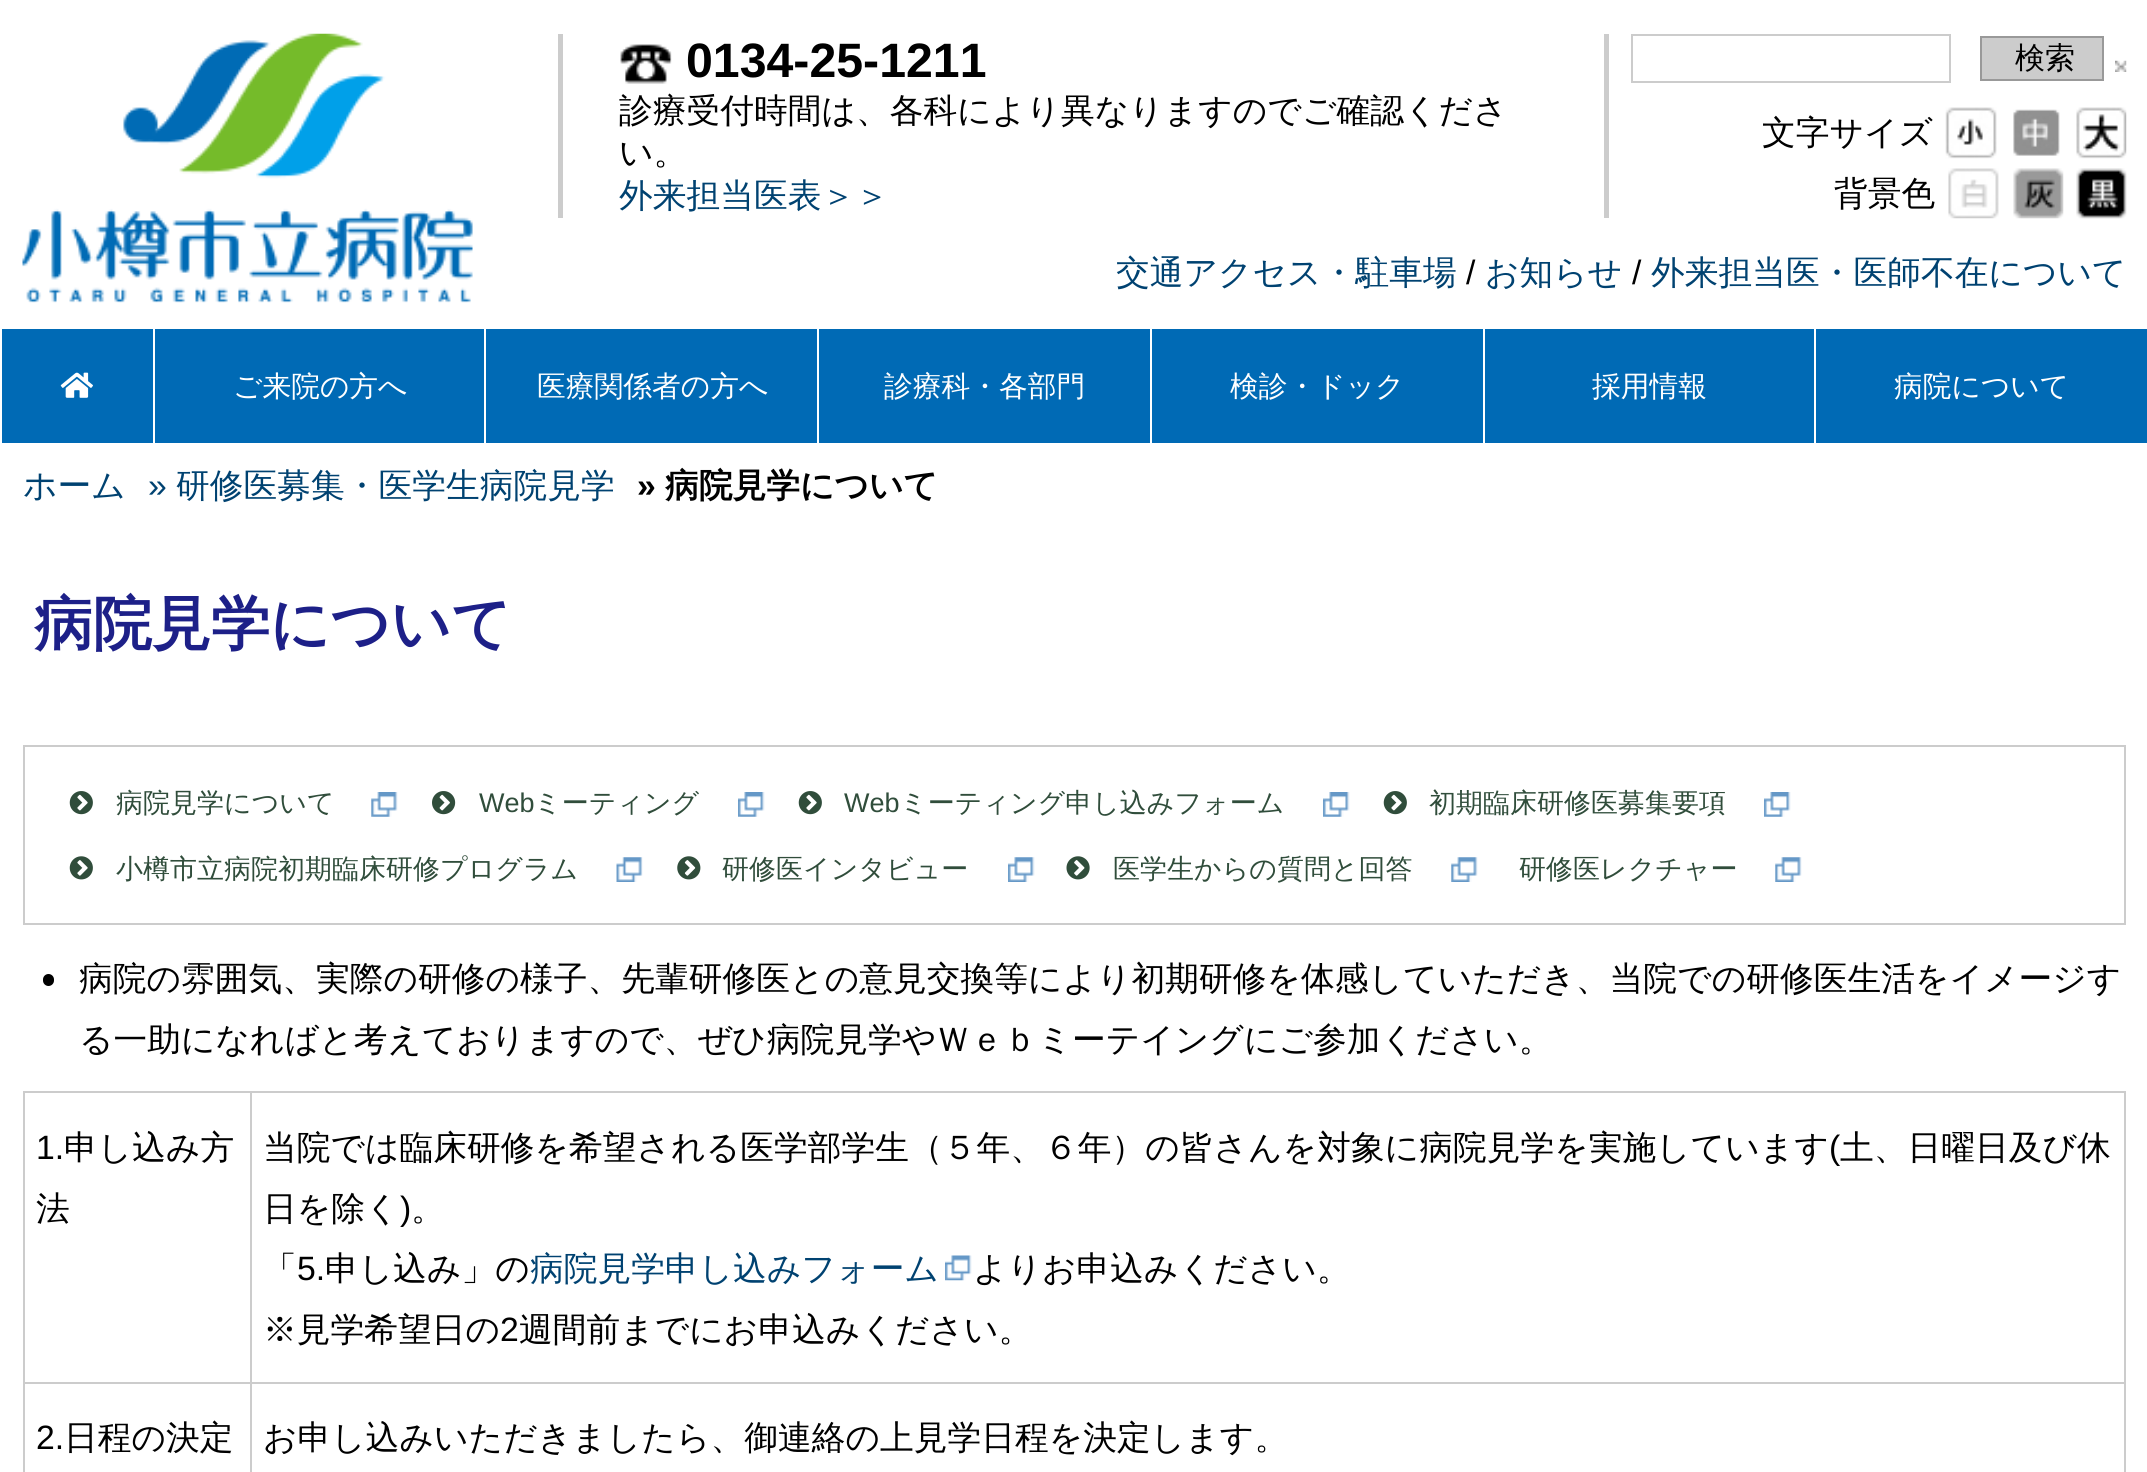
import math
import cairo



def rounded_rect(context, x, y, w, h, r):
    context.new_sub_path()
    for i, (u, v) in enumerate([(x + w - r, y + h - r), (x + r, y + h - r), (x + r, y + r), (x + w - r, y + r)]):
        context.arc(u, v, r, i * math.pi / 2, (i + 1) * math.pi / 2)
    context.close_path()


def draw_image(context, path, x, y, w, h):
    context.save()
    context.set_source_surface(cairo.ImageSurface.create_from_png(path), x, y)
    context.rectangle(x, y, w, h)
    context.fill()
    context.restore()


def draw(context):
    context.set_source_rgb(1, 1, 1)
    context.paint()
    draw_image(context, "images/1.png", 22, 33, 451, 270)
    context.set_source_rgb(204 / 255, 204 / 255, 204 / 255)
    context.rectangle(1604, 34, 5, 184)
    context.fill()
    context.rectangle(558, 34, 5, 184)
    context.fill()
    draw_image(context, "images/2.png", 620, 44, 52, 40)
    context.rectangle(1632, 35, 318, 47)
    context.stroke()
    context.rectangle(1981, 37, 122, 43)
    context.fill_preserve()
    context.set_source_rgb(153 / 255, 153 / 255, 153 / 255)
    context.stroke()
    draw_image(context, "images/3.png", 2115, 60, 12, 12)
    draw_image(context, "images/4.png", 1945, 107, 52, 52)
    draw_image(context, "images/5.png", 2013, 109, 47, 47)
    draw_image(context, "images/6.png", 2076, 107, 51, 52)
    draw_image(context, "images/7.png", 1948, 168, 51, 51)
    draw_image(context, "images/8.png", 2013, 168, 51, 51)
    draw_image(context, "images/9.png", 2076, 168, 51, 51)
    context.set_source_rgb(0, 106 / 255, 181 / 255)
    context.rectangle(2, 329, 2145, 114)
    context.fill()
    draw_image(context, "images/10.png", 60, 372, 33, 26)
    context.set_source_rgb(1, 1, 1)
    context.rectangle(153, 329, 2, 114)
    context.fill()
    context.rectangle(484, 329, 2, 114)
    context.fill()
    context.rectangle(817, 329, 2, 114)
    context.fill()
    context.rectangle(1150, 329, 2, 114)
    context.fill()
    context.rectangle(1483, 329, 2, 114)
    context.fill()
    context.rectangle(1814, 329, 2, 114)
    context.fill()
    context.set_source_rgb(204 / 255, 204 / 255, 204 / 255)
    context.rectangle(23, 745, 2103, 2)
    context.fill()
    context.rectangle(2124, 745, 2, 180)
    context.fill()
    context.rectangle(23, 923, 2103, 2)
    context.fill()
    context.rectangle(23, 745, 2, 180)
    context.fill()
    draw_image(context, "images/11.png", 371, 792, 27, 25)
    draw_image(context, "images/12.png", 69, 791, 24, 24)
    draw_image(context, "images/13.png", 738, 792, 27, 25)
    draw_image(context, "images/14.png", 432, 791, 24, 24)
    draw_image(context, "images/15.png", 1323, 792, 27, 25)
    draw_image(context, "images/12.png", 798, 791, 24, 24)
    draw_image(context, "images/15.png", 1764, 792, 27, 25)
    draw_image(context, "images/12.png", 1383, 791, 24, 24)
    draw_image(context, "images/16.png", 616, 857, 27, 25)
    draw_image(context, "images/17.png", 69, 856, 24, 24)
    draw_image(context, "images/18.png", 1008, 857, 27, 25)
    draw_image(context, "images/19.png", 677, 856, 24, 24)
    draw_image(context, "images/20.png", 1451, 857, 27, 25)
    draw_image(context, "images/21.png", 1066, 856, 24, 24)
    draw_image(context, "images/20.png", 1775, 857, 27, 25)
    context.set_source_rgb(0, 0, 0)
    rounded_rect(context, 43, 974, 11, 12, 5.5)
    context.fill()
    context.set_source_rgb(204 / 255, 204 / 255, 204 / 255)
    context.rectangle(250, 1091, 1876, 2)
    context.fill()
    context.rectangle(250, 1382, 1876, 2)
    context.fill()
    context.rectangle(250, 1382, 2, 90)
    context.fill()
    context.rectangle(23, 1382, 229, 2)
    context.fill()
    context.rectangle(250, 1091, 2, 293)
    context.fill()
    context.rectangle(23, 1091, 229, 2)
    context.fill()
    context.rectangle(23, 1382, 2, 90)
    context.fill()
    context.rectangle(23, 1091, 2, 293)
    context.fill()
    context.rectangle(2124, 1382, 2, 90)
    context.fill()
    context.rectangle(2124, 1091, 2, 293)
    context.fill()
    draw_image(context, "images/22.png", 945, 1255, 27, 26)
    context.select_font_face("Liberation Sans", cairo.FontSlant.NORMAL, cairo.FontWeight.BOLD)
    context.set_font_size(48.25)
    context.set_source_rgb(0, 0, 0)
    context.move_to(686, 77)
    context.show_text("0134-25-1211")
    context.select_font_face("WenQuanYi Zen Hei Medium")
    context.set_font_size(33.75)
    context.move_to(619, 122)
    context.show_text("診療受付時間は、各科により異なりますのでご確認くださ")
    context.move_to(619, 164)
    context.show_text("い。")
    context.set_source_rgb(0, 66 / 255, 113 / 255)
    context.move_to(619, 207)
    context.show_text("外来担当医表＞＞")
    context.set_font_size(30)
    context.set_source_rgb(0, 0, 0)
    context.move_to(2015, 68)
    context.show_text("検索")
    context.set_font_size(33.75)
    context.move_to(1762, 144)
    context.show_text("文字サイズ")
    context.move_to(1834, 205)
    context.show_text("背景色")
    context.set_source_rgb(0, 66 / 255, 113 / 255)
    context.move_to(1116, 284)
    context.show_text("交通アクセス・駐車場")
    context.select_font_face("Liberation Sans")
    context.set_source_rgb(0, 0, 0)
    context.move_to(1466, 284)
    context.show_text("/")
    context.select_font_face("WenQuanYi Zen Hei Medium")
    context.set_source_rgb(0, 66 / 255, 113 / 255)
    context.move_to(1485, 284)
    context.show_text("お知らせ")
    context.select_font_face("Liberation Sans")
    context.set_source_rgb(0, 0, 0)
    context.move_to(1632, 284)
    context.show_text("/")
    context.select_font_face("WenQuanYi Zen Hei Medium")
    context.set_source_rgb(0, 66 / 255, 113 / 255)
    context.move_to(1651, 284)
    context.show_text("外来担当医・医師不在について")
    context.set_font_size(28.75)
    context.set_source_rgb(1, 1, 1)
    context.move_to(233, 396)
    context.show_text("ご来院の方へ")
    context.move_to(537, 396)
    context.show_text("医療関係者の方へ")
    context.move_to(884, 396)
    context.show_text("診療科・各部門")
    context.move_to(1230, 396)
    context.show_text("検診・ドック")
    context.move_to(1592, 396)
    context.show_text("採用情報")
    context.move_to(1894, 396)
    context.show_text("病院について")
    context.set_font_size(33.75)
    context.set_source_rgb(0, 66 / 255, 113 / 255)
    context.move_to(23, 497)
    context.show_text("ホーム")
    context.select_font_face("Liberation Sans")
    context.move_to(148, 497)
    context.show_text("»")
    context.select_font_face("WenQuanYi Zen Hei Medium")
    context.move_to(176, 497)
    context.show_text("研修医募集・医学生病院見学")
    context.select_font_face("Liberation Sans", cairo.FontSlant.NORMAL, cairo.FontWeight.BOLD)
    context.set_source_rgb(0, 0, 0)
    context.move_to(637, 497)
    context.show_text("»")
    context.select_font_face("WenQuanYi Zen Hei", cairo.FontSlant.NORMAL, cairo.FontWeight.BOLD)
    context.move_to(665, 497)
    context.show_text("病院見学について")
    context.set_font_size(59)
    context.set_source_rgb(29 / 255, 32 / 255, 136 / 255)
    context.move_to(34, 644)
    context.show_text("病院見学について")
    context.select_font_face("WenQuanYi Zen Hei Medium")
    context.set_font_size(27)
    context.set_source_rgb(48 / 255, 77 / 255, 59 / 255)
    context.move_to(116, 812)
    context.show_text("病院見学について")
    context.select_font_face("Liberation Sans")
    context.move_to(479, 812)
    context.show_text("Web")
    context.select_font_face("WenQuanYi Zen Hei Medium")
    context.move_to(534, 812)
    context.show_text("ミーティング")
    context.select_font_face("Liberation Sans")
    context.move_to(844, 812)
    context.show_text("Web")
    context.select_font_face("WenQuanYi Zen Hei Medium")
    context.move_to(900, 812)
    context.show_text("ミーティング申し込みフォーム")
    context.move_to(1429, 812)
    context.show_text("初期臨床研修医募集要項")
    context.move_to(116, 878)
    context.show_text("小樽市立病院初期臨床研修プログラム")
    context.move_to(722, 878)
    context.show_text("研修医インタビュー")
    context.move_to(1113, 878)
    context.show_text("医学生からの質問と回答")
    context.move_to(1519, 878)
    context.show_text("研修医レクチャー")
    context.set_font_size(33.75)
    context.set_source_rgb(0, 0, 0)
    context.move_to(79, 990)
    context.show_text("病院の雰囲気、実際の研修の様子、先輩研修医との意見交換等により初期研修を体感していただき、当院での研修医生活をイメージす")
    context.move_to(79, 1051)
    context.show_text("る一助になればと考えておりますので、ぜひ病院見学やＷｅｂミーテイングにご参加ください。")
    context.select_font_face("Liberation Sans")
    context.move_to(36, 1159)
    context.show_text("1.")
    context.select_font_face("WenQuanYi Zen Hei Medium")
    context.move_to(64, 1159)
    context.show_text("申し込み方")
    context.move_to(36, 1220)
    context.show_text("法")
    context.move_to(263, 1159)
    context.show_text("当院では臨床研修を希望される医学部学生（５年、６年）の皆さんを対象に病院見学を実施しています")
    context.select_font_face("Liberation Sans")
    context.move_to(1829, 1159)
    context.show_text("(")
    context.select_font_face("WenQuanYi Zen Hei Medium")
    context.move_to(1840, 1159)
    context.show_text("土、日曜日及び休")
    context.move_to(263, 1220)
    context.show_text("日を除く")
    context.select_font_face("Liberation Sans")
    context.move_to(400, 1220)
    context.show_text(")")
    context.select_font_face("WenQuanYi Zen Hei Medium")
    context.move_to(411, 1220)
    context.show_text("。")
    context.move_to(263, 1280)
    context.show_text("「")
    context.select_font_face("Liberation Sans")
    context.move_to(297, 1280)
    context.show_text("5.")
    context.select_font_face("WenQuanYi Zen Hei Medium")
    context.move_to(325, 1280)
    context.show_text("申し込み」の")
    context.set_source_rgb(0, 66 / 255, 113 / 255)
    context.move_to(530, 1280)
    context.show_text("病院見学申し込みフォーム")
    context.set_source_rgb(0, 0, 0)
    context.move_to(973, 1280)
    context.show_text("よりお申込みください。")
    context.move_to(263, 1341)
    context.show_text("※見学希望日の")
    context.select_font_face("Liberation Sans")
    context.move_to(500, 1341)
    context.show_text("2")
    context.select_font_face("WenQuanYi Zen Hei Medium")
    context.move_to(519, 1341)
    context.show_text("週間前までにお申込みください。")
    context.select_font_face("Liberation Sans")
    context.move_to(36, 1449)
    context.show_text("2.")
    context.select_font_face("WenQuanYi Zen Hei Medium")
    context.move_to(64, 1449)
    context.show_text("日程の決定")
    context.move_to(263, 1449)
    context.show_text("お申し込みいただきましたら、御連絡の上見学日程を決定します。")


surface = cairo.ImageSurface(cairo.Format.RGB24, 2147, 1472)
context = cairo.Context(surface)
options = cairo.FontOptions()
options.set_hint_metrics(cairo.HintMetrics.OFF)
options.set_hint_style(cairo.HintStyle.NONE)
context.set_font_options(options)
context.set_miter_limit(4)
draw(context)
surface.write_to_png("out.png")
